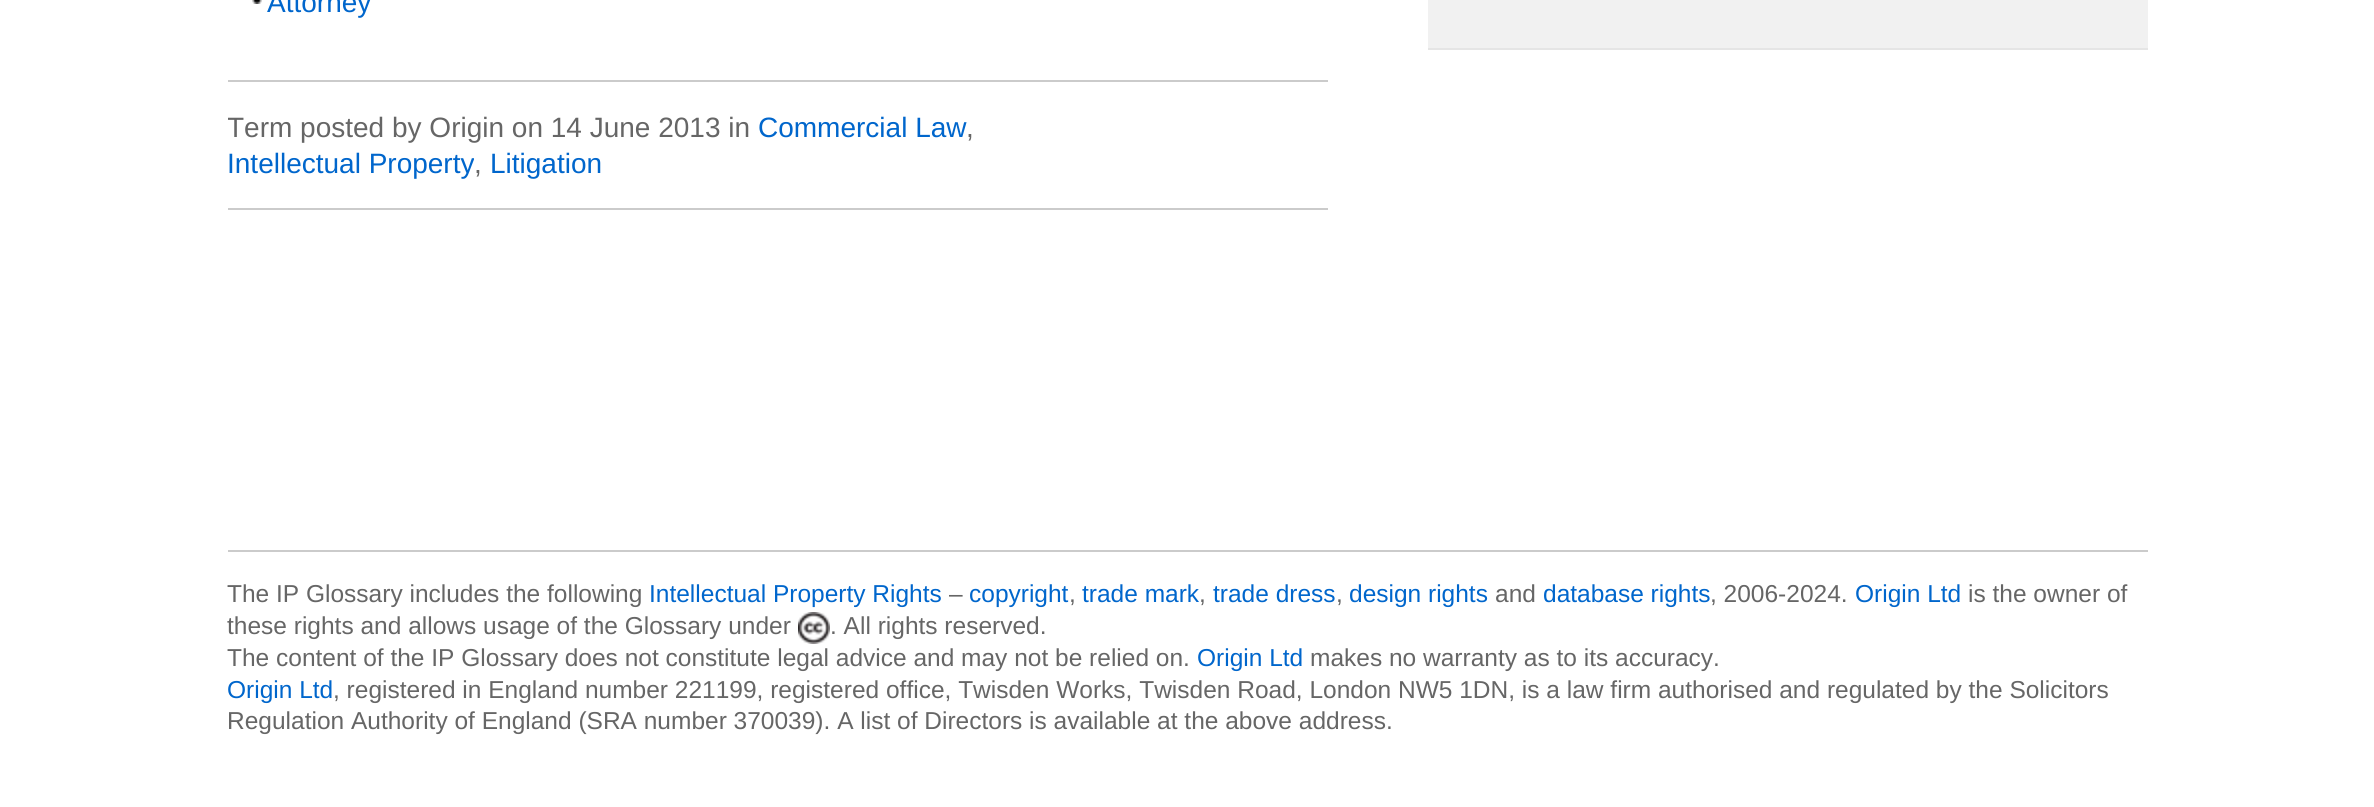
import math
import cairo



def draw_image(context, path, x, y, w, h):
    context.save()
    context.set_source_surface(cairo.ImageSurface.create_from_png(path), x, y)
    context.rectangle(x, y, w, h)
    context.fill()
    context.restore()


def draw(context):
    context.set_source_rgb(1, 1, 1)
    context.paint()
    draw_image(context, "images/1.png", 252, 0, 10, 4)
    context.set_source_rgb(203 / 255, 203 / 255, 203 / 255)
    context.rectangle(228, 80, 1100, 2)
    context.fill()
    context.rectangle(228, 208, 1100, 2)
    context.fill()
    context.set_source_rgb(241 / 255, 241 / 255, 241 / 255)
    context.rectangle(1428, 0, 720, 48)
    context.fill()
    context.set_source_rgb(229 / 255, 229 / 255, 229 / 255)
    context.rectangle(1428, 48, 720, 2)
    context.fill()
    context.set_source_rgb(203 / 255, 203 / 255, 203 / 255)
    context.rectangle(228, 550, 1920, 2)
    context.fill()
    draw_image(context, "images/2.png", 798, 612, 32, 32)
    context.select_font_face("Liberation Sans")
    context.set_font_size(28)
    context.set_source_rgb(0, 102 / 255, 204 / 255)
    context.move_to(267, 12)
    context.show_text("Attorney")
    context.save()
    context.rectangle(228, 82, 1100, 126)
    context.clip()
    context.set_source_rgb(102 / 255, 102 / 255, 102 / 255)
    context.move_to(227, 137)
    context.show_text("Term posted")
    context.restore()
    context.set_source_rgb(102 / 255, 102 / 255, 102 / 255)
    context.move_to(392, 137)
    context.show_text("by Origin on 14 June 2013 in")
    context.set_source_rgb(0, 102 / 255, 204 / 255)
    context.move_to(758, 137)
    context.show_text("Commercial Law")
    context.set_source_rgb(102 / 255, 102 / 255, 102 / 255)
    context.move_to(966, 137)
    context.show_text(",")
    context.set_source_rgb(0, 102 / 255, 204 / 255)
    context.move_to(227, 173)
    context.show_text("Intellectual Property")
    context.set_source_rgb(102 / 255, 102 / 255, 102 / 255)
    context.move_to(474, 173)
    context.show_text(",")
    context.set_source_rgb(0, 102 / 255, 204 / 255)
    context.move_to(490, 173)
    context.show_text("Litigation")
    context.set_font_size(24.5)
    context.set_source_rgb(102 / 255, 102 / 255, 102 / 255)
    context.move_to(227, 602)
    context.show_text("The IP Glossary includes the following")
    context.set_source_rgb(0, 102 / 255, 204 / 255)
    context.move_to(649, 602)
    context.show_text("Intellectual Property Rights")
    context.set_source_rgb(102 / 255, 102 / 255, 102 / 255)
    context.move_to(949, 602)
    context.show_text("–")
    context.set_source_rgb(0, 102 / 255, 204 / 255)
    context.move_to(969, 602)
    context.show_text("copyright")
    context.move_to(1082, 602)
    context.show_text("trade mark")
    context.move_to(1213, 602)
    context.show_text("trade dress")
    context.move_to(1349, 602)
    context.show_text("design rights")
    context.set_source_rgb(102 / 255, 102 / 255, 102 / 255)
    context.move_to(1495, 602)
    context.show_text("and")
    context.set_source_rgb(0, 102 / 255, 204 / 255)
    context.move_to(1543, 602)
    context.show_text("database rights")
    context.set_source_rgb(102 / 255, 102 / 255, 102 / 255)
    context.move_to(1710, 602)
    context.show_text(", 2006-2024.")
    context.set_source_rgb(0, 102 / 255, 204 / 255)
    context.move_to(1855, 602)
    context.show_text("Origin Ltd")
    context.set_source_rgb(102 / 255, 102 / 255, 102 / 255)
    context.move_to(1968, 602)
    context.show_text("is the owner of")
    context.move_to(1069, 602)
    context.show_text(",")
    context.move_to(1199, 602)
    context.show_text(",")
    context.move_to(1336, 602)
    context.show_text(",")
    context.move_to(227, 634)
    context.show_text("these rights and allows usage of the Glossary under")
    context.move_to(830, 634)
    context.show_text(". All rights reserved.")
    context.move_to(227, 666)
    context.show_text("The content of the IP Glossary does not constitute legal advice and may not be relied on.")
    context.set_source_rgb(0, 102 / 255, 204 / 255)
    context.move_to(1197, 666)
    context.show_text("Origin Ltd")
    context.set_source_rgb(102 / 255, 102 / 255, 102 / 255)
    context.move_to(1310, 666)
    context.show_text("makes no warranty as to its accuracy.")
    context.set_source_rgb(0, 102 / 255, 204 / 255)
    context.move_to(227, 698)
    context.show_text("Origin Ltd")
    context.set_source_rgb(102 / 255, 102 / 255, 102 / 255)
    context.move_to(333, 698)
    context.show_text(", registered in England number 221199, registered office, Twisden Works, Twisden Road, London NW5 1DN, is a law firm authorised and regulated by the Solicitors")
    context.move_to(227, 729)
    context.show_text("Regulation Authority of England (SRA number 370039). A list of Directors is available at the above address.")


surface = cairo.ImageSurface(cairo.Format.RGB24, 2374, 807)
context = cairo.Context(surface)
options = cairo.FontOptions()
options.set_hint_metrics(cairo.HintMetrics.OFF)
options.set_hint_style(cairo.HintStyle.NONE)
context.set_font_options(options)
context.set_miter_limit(4)
draw(context)
surface.write_to_png("out.png")
